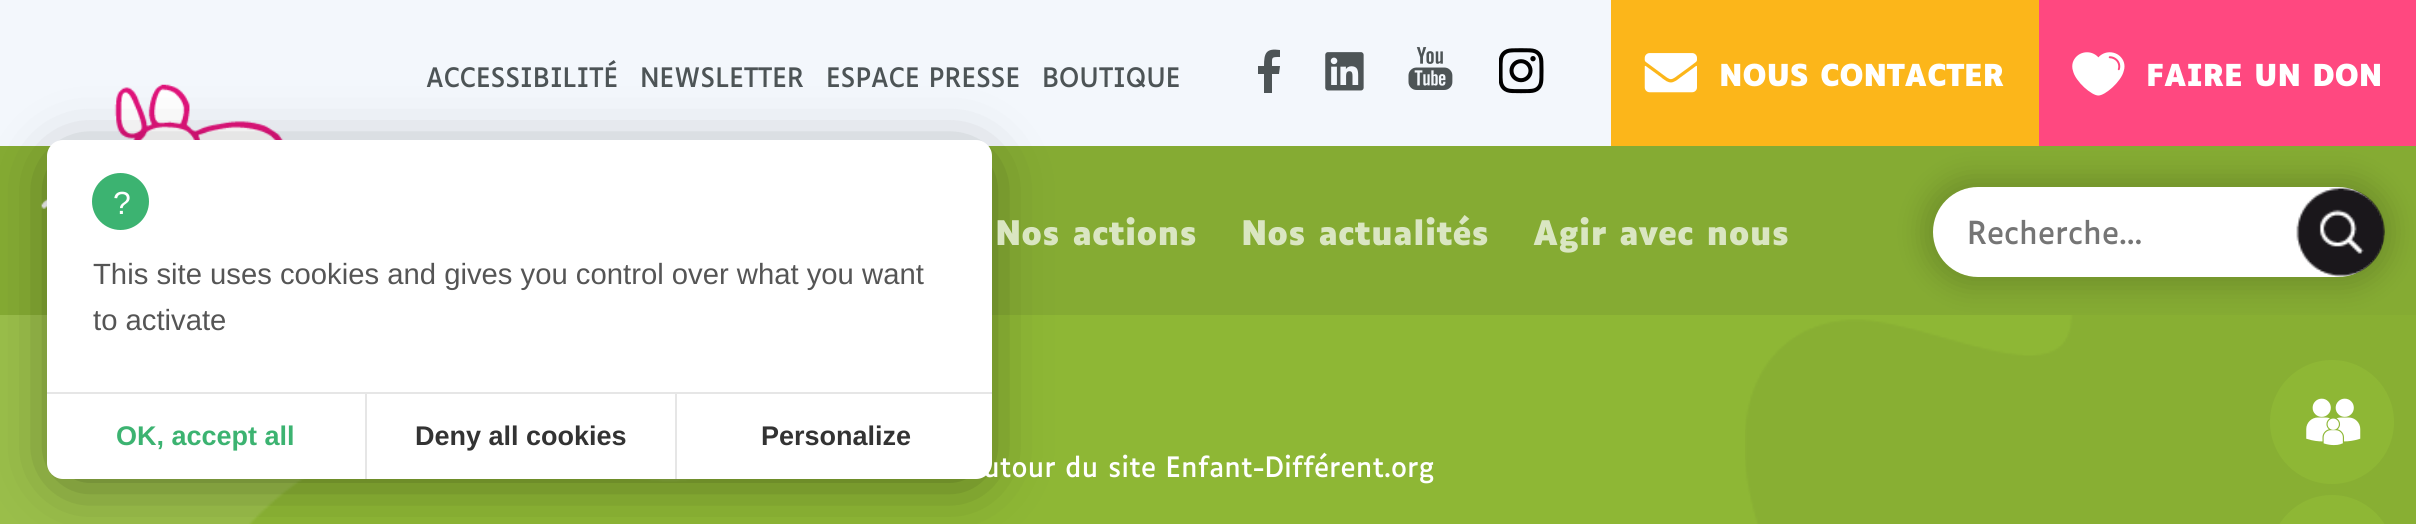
import math
import cairo



def rounded_rect(context, x, y, w, h, r):
    context.new_sub_path()
    for i, (u, v) in enumerate([(x + w - r, y + h - r), (x + r, y + h - r), (x + r, y + r), (x + w - r, y + r)]):
        context.arc(u, v, r, i * math.pi / 2, (i + 1) * math.pi / 2)
    context.close_path()


def draw_shadow(context, x, y, w, h, r, blur, alpha):
    context.push_group_with_content(cairo.Content.ALPHA)
    context.set_operator(cairo.Operator.SOURCE)
    for i in range(15, -16, -2):
        e = blur * i / 6
        if min(w, h) + 2 * e > 0:
            context.set_source_rgba(0, 0, 0, alpha * math.erfc((i - 1) / 8.5) / 2)
            rounded_rect(context, x - e, y - e, w + 2 * e, h + 2 * e, max(0, min(r + e + blur * .6, min(w, h) / 2 + e)))
            context.fill()
    context.mask(context.pop_group())


def draw_image(context, path, x, y, w, h):
    context.save()
    context.set_source_surface(cairo.ImageSurface.create_from_png(path), x, y)
    context.rectangle(x, y, w, h)
    context.fill()
    context.restore()


def draw(context):
    context.set_source_rgb(243 / 255, 247 / 255, 252 / 255)
    context.paint()
    context.set_source_rgb(77 / 255, 84 / 255, 86 / 255)
    context.new_path()
    context.move_to(1264, 93)
    context.line_to(1264, 74)
    context.line_to(1258, 74)
    context.line_to(1258, 66)
    context.line_to(1264, 66)
    context.curve_to(1264, 53, 1266, 48, 1280, 50)
    context.line_to(1280, 57)
    context.curve_to(1271, 57, 1272, 57, 1272, 66)
    context.line_to(1280, 66)
    context.line_to(1279, 74)
    context.line_to(1272, 74)
    context.line_to(1272, 93)
    context.close_path()
    context.fill()
    draw_image(context, "images/1.png", 1325, 52, 39, 39)
    draw_image(context, "images/2.png", 1408, 47, 45, 43)
    draw_image(context, "images/3.png", 1499, 48, 45, 46)
    context.set_source_rgb(252 / 255, 182 / 255, 26 / 255)
    context.rectangle(1611, 0, 428, 146)
    context.fill()
    draw_image(context, "images/4.png", 1644, 53, 53, 40)
    context.set_source_rgb(1, 72 / 255, 128 / 255)
    context.rectangle(2039, 0, 377, 146)
    context.fill()
    draw_image(context, "images/5.png", 2072, 52, 53, 44)
    context.set_source_rgb(133 / 255, 171 / 255, 51 / 255)
    context.rectangle(0, 146, 2416, 169)
    context.fill()
    draw_image(context, "images/6.png", 41, 84, 243, 125)
    context.set_source_rgb(142 / 255, 183 / 255, 53 / 255)
    context.rectangle(0, 315, 2416, 209)
    context.fill()
    draw_image(context, "images/10.png", 1745, 315, 671, 209)
    context.set_source_rgb(0, 0, 0)
    draw_shadow(context, 1922, 176, 472, 112, 56, 13.5, 0.15)
    context.set_source_rgb(1, 1, 1)
    rounded_rect(context, 1933, 187, 450, 90, 45)
    context.fill()
    draw_image(context, "images/7.png", 2296, 186, 89, 91)
    context.set_source_rgb(142 / 255, 183 / 255, 53 / 255)
    context.arc(2332, 422, 62, 0, 2 * math.pi)
    context.fill()
    draw_image(context, "images/8.png", 2306, 398, 55, 48)
    rounded_rect(context, 2270, 495, 124, 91, 62)
    context.fill()
    draw_image(context, "images/9.png", 0, 315, 699, 209)
    context.set_source_rgb(0, 0, 0)
    draw_shadow(context, 70, 171, 900, 295, 0, 34, 0.62)
    context.set_source_rgb(1, 1, 1)
    rounded_rect(context, 47, 140, 945, 339, 16)
    context.fill()
    context.set_source_rgb(230 / 255, 230 / 255, 230 / 255)
    context.rectangle(47, 392, 945, 2)
    context.fill()
    context.set_source_rgb(60 / 255, 179 / 255, 113 / 255)
    context.arc(120.5, 201.5, 28.5, 0, 2 * math.pi)
    context.fill()
    context.set_source_rgb(230 / 255, 230 / 255, 230 / 255)
    context.rectangle(675, 394, 2, 85)
    context.fill()
    context.rectangle(365, 394, 2, 85)
    context.fill()
    context.select_font_face("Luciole")
    context.set_font_size(25.75)
    context.set_source_rgb(77 / 255, 84 / 255, 86 / 255)
    context.move_to(426, 87)
    context.show_text("ACCESSIBILITÉ")
    context.move_to(640, 87)
    context.show_text("NEWSLETTER")
    context.move_to(826, 87)
    context.show_text("ESPACE PRESSE")
    context.move_to(1042, 87)
    context.show_text("BOUTIQUE")
    context.select_font_face("Luciole", cairo.FontSlant.NORMAL, cairo.FontWeight.BOLD)
    context.set_font_size(29)
    context.set_source_rgb(1, 1, 1)
    context.move_to(1719, 86)
    context.show_text("NOUS CONTACTER")
    context.move_to(2146, 86)
    context.show_text("FAIRE UN DON")
    context.set_font_size(32.5)
    context.set_source_rgb(218 / 255, 230 / 255, 194 / 255)
    context.move_to(995, 245)
    context.show_text("Nos actions")
    context.move_to(1241, 245)
    context.show_text("Nos actualités")
    context.move_to(1533, 245)
    context.show_text("Agir avec nous")
    context.select_font_face("Luciole")
    context.set_font_size(30.5)
    context.set_source_rgb(117 / 255, 117 / 255, 117 / 255)
    context.move_to(1967, 244)
    context.show_text("Recherche...")
    context.set_font_size(27)
    context.set_source_rgb(1, 1, 1)
    context.move_to(983, 477)
    context.show_text("utour du site Enfant-Différent.org")
    context.select_font_face("Liberation Sans")
    context.set_font_size(32)
    context.move_to(113, 214)
    context.show_text("?")
    context.set_font_size(29.25)
    context.set_source_rgb(85 / 255, 85 / 255, 85 / 255)
    context.move_to(93, 284)
    context.show_text("This site uses cookies and gives you control over what you want")
    context.move_to(93, 330)
    context.show_text("to activate")
    context.select_font_face("Liberation Sans", cairo.FontSlant.NORMAL, cairo.FontWeight.BOLD)
    context.set_font_size(27)
    context.set_source_rgb(60 / 255, 179 / 255, 113 / 255)
    context.move_to(116, 445)
    context.show_text("OK, accept all")
    context.set_source_rgb(51 / 255, 51 / 255, 51 / 255)
    context.move_to(415, 445)
    context.show_text("Deny all cookies")
    context.move_to(761, 445)
    context.show_text("Personalize")


surface = cairo.ImageSurface(cairo.Format.RGB24, 2416, 524)
context = cairo.Context(surface)
options = cairo.FontOptions()
options.set_hint_metrics(cairo.HintMetrics.OFF)
options.set_hint_style(cairo.HintStyle.NONE)
context.set_font_options(options)
context.set_miter_limit(4)
draw(context)
surface.write_to_png("out.png")
